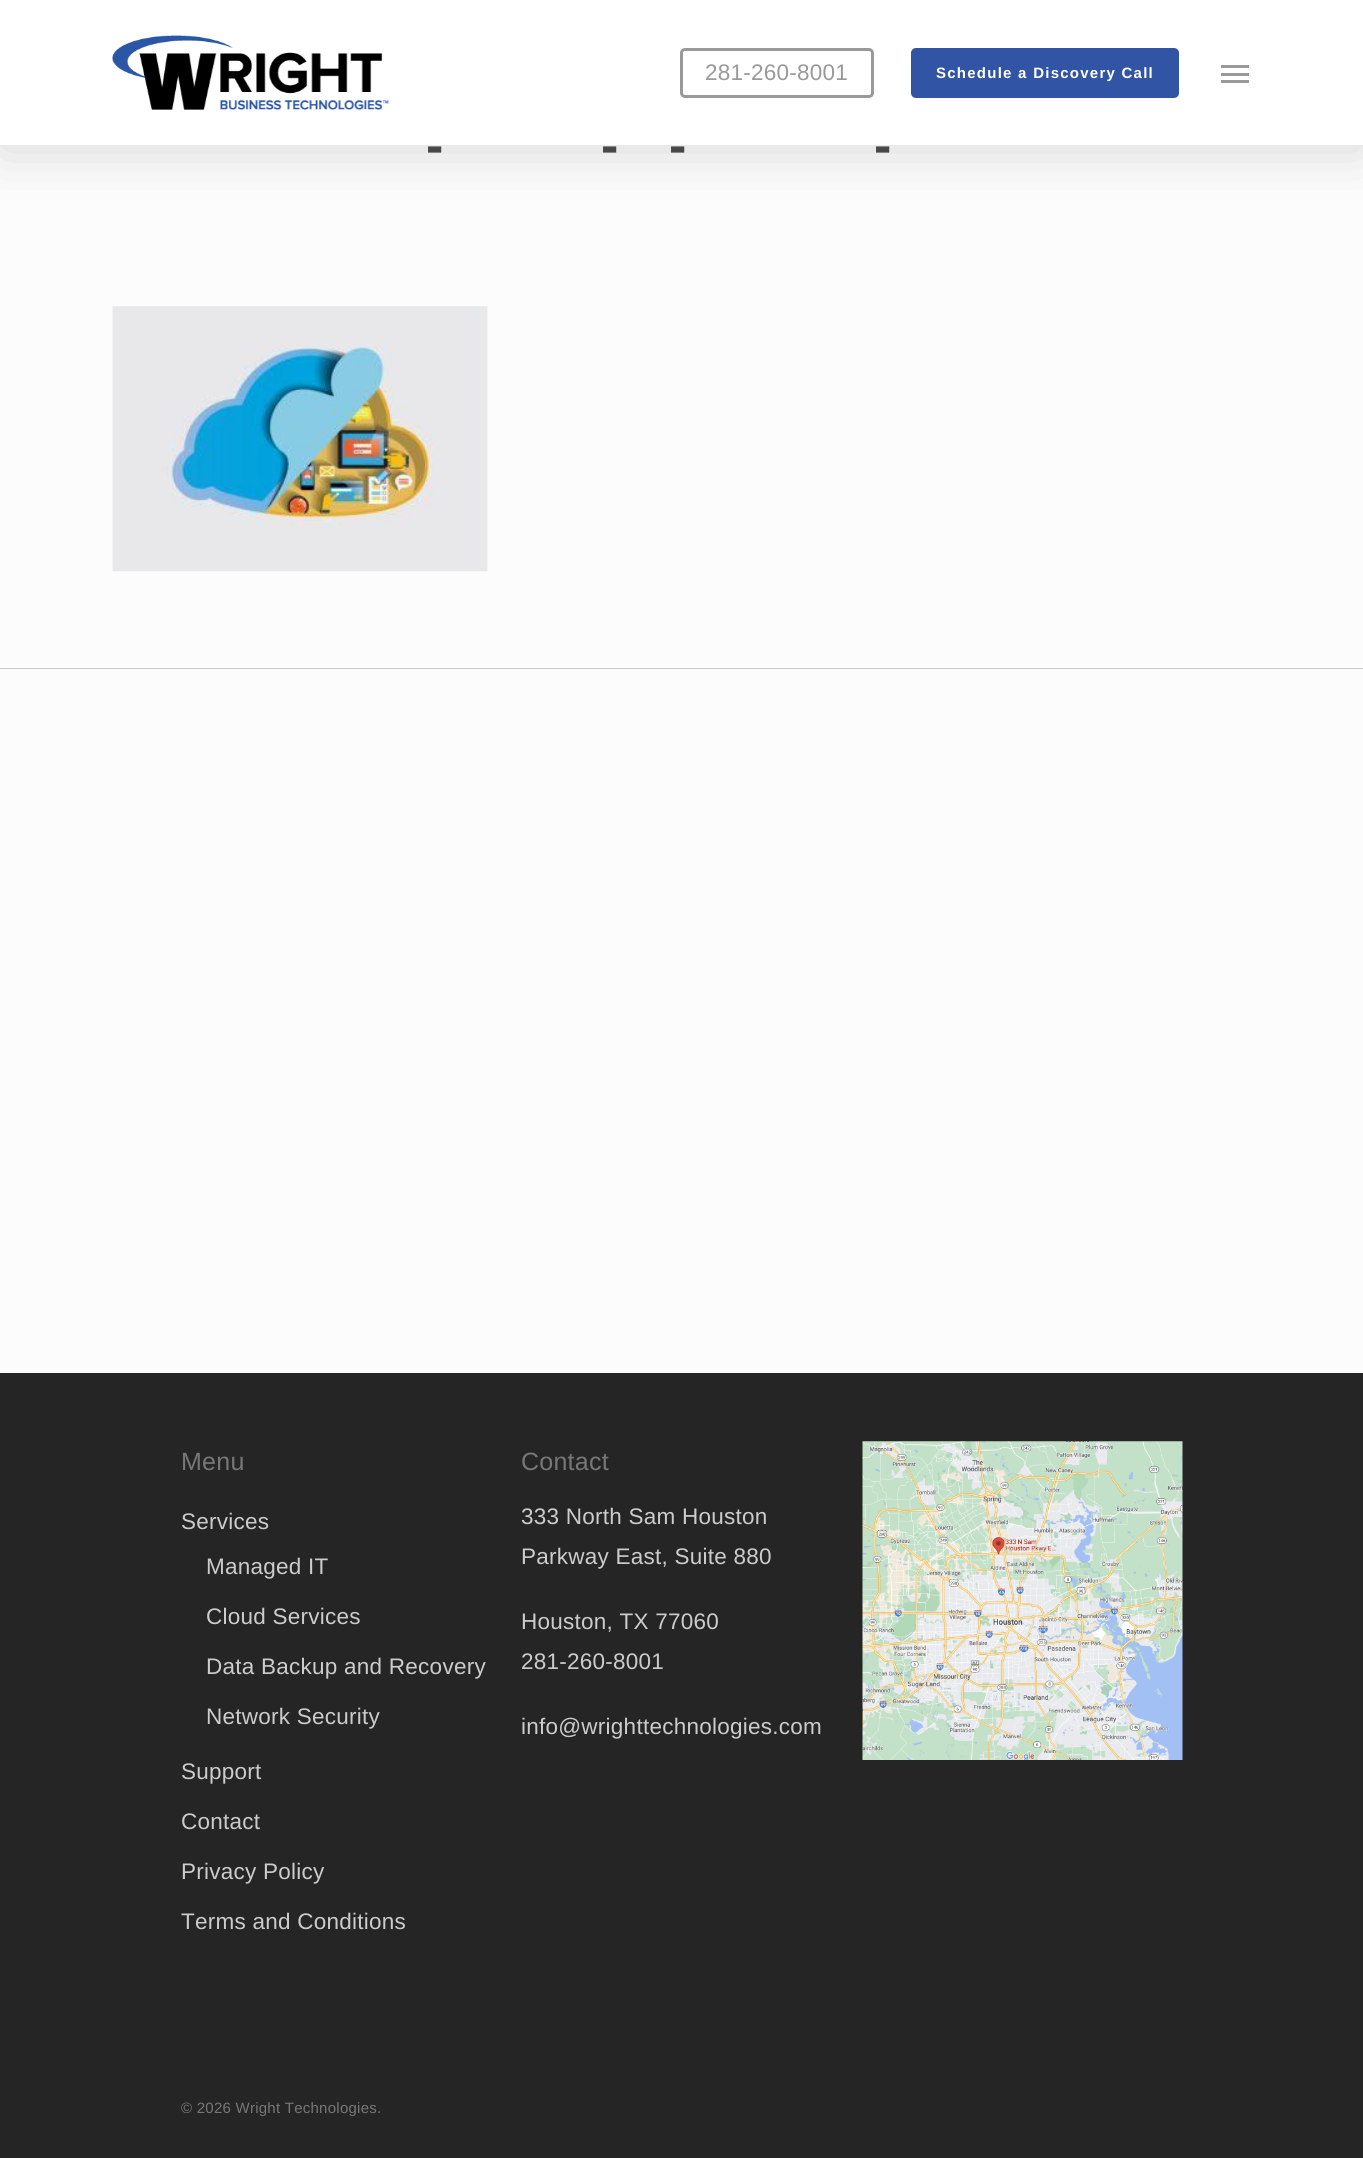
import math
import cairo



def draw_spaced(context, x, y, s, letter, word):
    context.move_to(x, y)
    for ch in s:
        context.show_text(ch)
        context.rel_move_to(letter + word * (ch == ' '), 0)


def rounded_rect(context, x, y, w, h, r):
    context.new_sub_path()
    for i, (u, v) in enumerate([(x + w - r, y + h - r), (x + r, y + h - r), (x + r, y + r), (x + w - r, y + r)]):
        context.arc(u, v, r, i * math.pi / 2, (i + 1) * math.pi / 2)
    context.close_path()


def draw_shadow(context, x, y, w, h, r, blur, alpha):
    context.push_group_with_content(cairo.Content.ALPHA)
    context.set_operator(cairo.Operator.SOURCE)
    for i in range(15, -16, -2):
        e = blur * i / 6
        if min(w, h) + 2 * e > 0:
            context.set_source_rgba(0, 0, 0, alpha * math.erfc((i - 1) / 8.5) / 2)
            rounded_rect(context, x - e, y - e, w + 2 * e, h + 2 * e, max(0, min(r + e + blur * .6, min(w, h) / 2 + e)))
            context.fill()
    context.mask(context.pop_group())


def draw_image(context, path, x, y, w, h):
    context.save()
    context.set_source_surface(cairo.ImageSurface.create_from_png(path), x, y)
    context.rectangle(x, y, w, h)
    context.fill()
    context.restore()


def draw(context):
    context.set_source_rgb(252 / 255, 252 / 255, 252 / 255)
    context.paint()
    context.set_source_rgb(0, 0, 0)
    draw_shadow(context, 0, 4, 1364, 145, 0, 28, 0.15)
    context.set_source_rgb(1, 1, 1)
    context.rectangle(0, 0, 1363, 145)
    context.fill()
    draw_image(context, "images/1.png", 112, 35, 277, 75)
    rounded_rect(context, 681.5, 49.5, 191, 47, 3.5)
    context.set_source_rgb(153 / 255, 153 / 255, 153 / 255)
    context.set_line_width(3)
    context.stroke()
    context.set_source_rgb(49 / 255, 85 / 255, 164 / 255)
    rounded_rect(context, 911, 48, 268, 50, 5)
    context.fill()
    context.set_source_rgb(153 / 255, 153 / 255, 153 / 255)
    context.rectangle(1221, 65, 28, 3)
    context.fill()
    context.rectangle(1221, 80, 28, 3)
    context.fill()
    context.rectangle(1221, 73, 28, 3)
    context.fill()
    draw_image(context, "images/2.png", 112, 306, 376, 266)
    context.set_source_rgb(202 / 255, 202 / 255, 202 / 255)
    context.rectangle(0, 668, 1363, 1)
    context.fill()
    context.set_source_rgb(37 / 255, 37 / 255, 37 / 255)
    context.rectangle(0, 1373, 1363, 785)
    context.fill()
    draw_image(context, "images/3.png", 862, 1441, 321, 319)
    context.select_font_face("Liberation Sans")
    context.set_font_size(22.5)
    context.set_source_rgb(153 / 255, 153 / 255, 153 / 255)
    draw_spaced(context, 705, 80, "281-260-8001", 0.25, 0)
    context.select_font_face("Liberation Sans", cairo.FontSlant.NORMAL, cairo.FontWeight.BOLD)
    context.set_font_size(15)
    context.set_source_rgb(1, 1, 1)
    draw_spaced(context, 936, 78, "Schedule a Discovery Call", 1.25, 0)
    context.set_font_size(52)
    context.set_source_rgb(72 / 255, 72 / 255, 72 / 255)
    context.move_to(426, 163)
    context.show_text("-")
    context.move_to(601, 163)
    context.show_text("-")
    context.move_to(669, 163)
    context.show_text("-")
    context.move_to(874, 163)
    context.show_text("-")
    context.select_font_face("Liberation Sans")
    context.set_font_size(25)
    context.set_source_rgb(119 / 255, 119 / 255, 119 / 255)
    draw_spaced(context, 181, 1470, "Menu", 0.25, 0)
    context.set_font_size(22.5)
    context.set_source_rgb(204 / 255, 204 / 255, 204 / 255)
    draw_spaced(context, 181, 1529, "Services", 0.25, 0)
    draw_spaced(context, 206, 1574, "Managed IT", 0.25, 0)
    draw_spaced(context, 206, 1624, "Cloud Services", 0.25, 0)
    draw_spaced(context, 206, 1674, "Data Backup and Recovery", 0.25, 0)
    draw_spaced(context, 206, 1724, "Network Security", 0.25, 0)
    draw_spaced(context, 181, 1779, "Support", 0.25, 0)
    draw_spaced(context, 181, 1829, "Contact", 0.25, 0)
    draw_spaced(context, 181, 1879, "Privacy Policy", 0.25, 0)
    draw_spaced(context, 181, 1929, "Terms and Conditions", 0.25, 0)
    context.set_font_size(25)
    context.set_source_rgb(119 / 255, 119 / 255, 119 / 255)
    draw_spaced(context, 521, 1470, "Contact", 0.25, 0)
    context.set_font_size(22.5)
    context.set_source_rgb(204 / 255, 204 / 255, 204 / 255)
    draw_spaced(context, 521, 1524, "333 North Sam Houston", 0.25, 0)
    draw_spaced(context, 521, 1564, "Parkway East, Suite 880", 0.25, 0)
    draw_spaced(context, 521, 1629, "Houston, TX 77060", 0.25, 0)
    draw_spaced(context, 521, 1669, "281-260-8001", 0.25, 0)
    draw_spaced(context, 521, 1734, "info@wrighttechnologies.com", 0.25, 0)
    context.set_font_size(15)
    context.set_source_rgb(119 / 255, 119 / 255, 119 / 255)
    draw_spaced(context, 181, 2113, "© 2026 Wright Technologies.", 0.25, 0)


surface = cairo.ImageSurface(cairo.Format.RGB24, 1363, 2158)
context = cairo.Context(surface)
options = cairo.FontOptions()
options.set_hint_metrics(cairo.HintMetrics.OFF)
options.set_hint_style(cairo.HintStyle.NONE)
context.set_font_options(options)
context.set_miter_limit(4)
draw(context)
surface.write_to_png("out.png")
